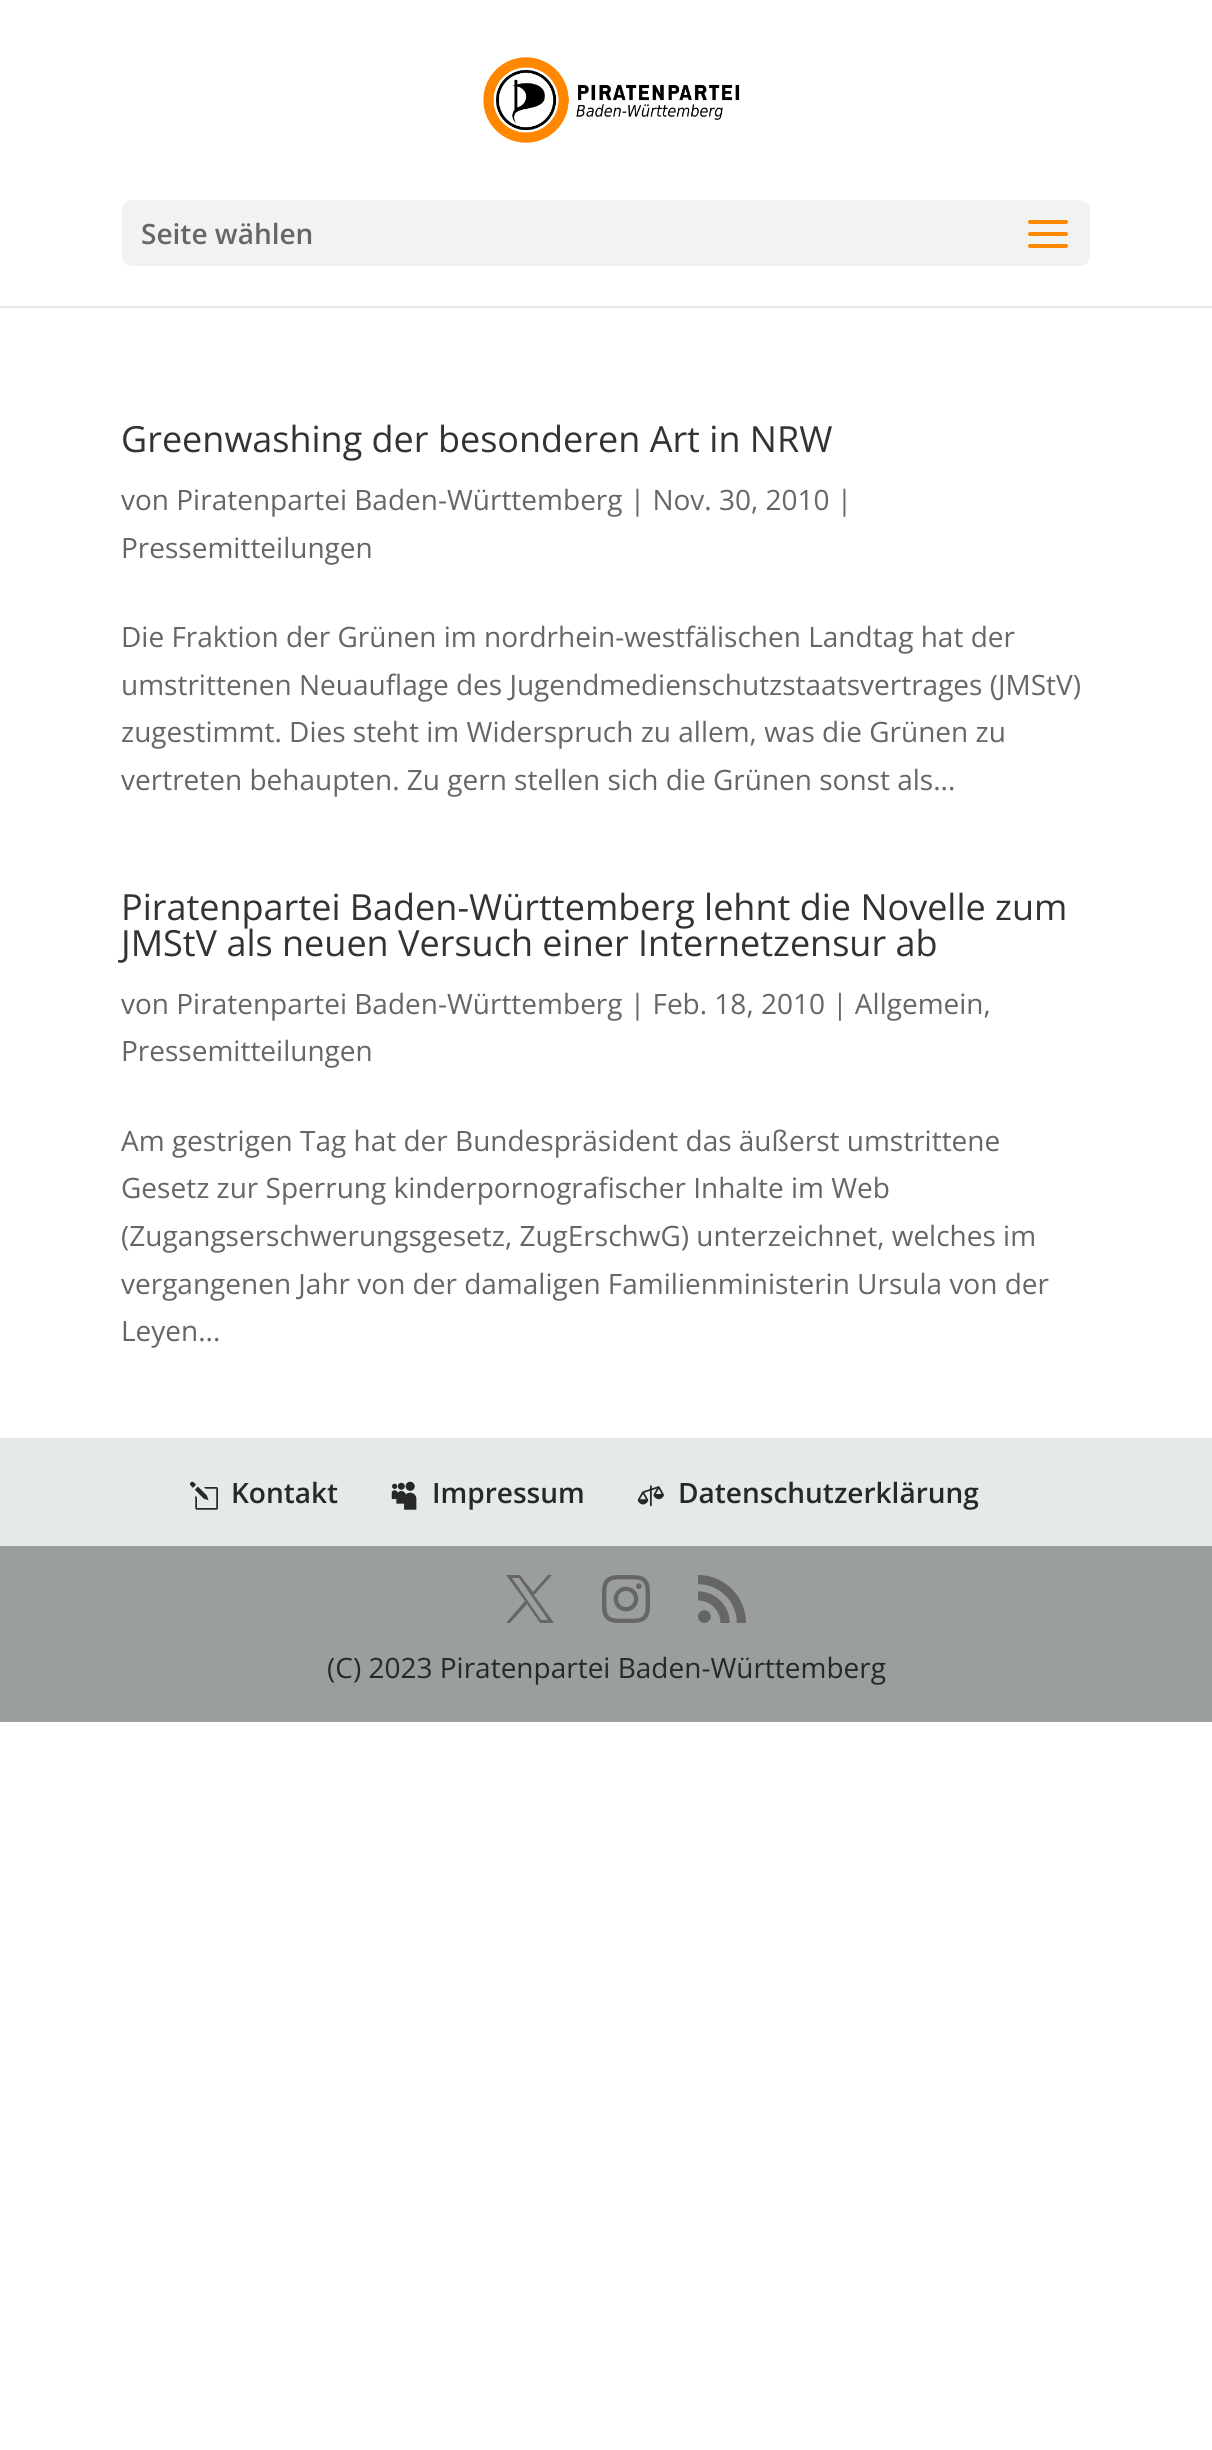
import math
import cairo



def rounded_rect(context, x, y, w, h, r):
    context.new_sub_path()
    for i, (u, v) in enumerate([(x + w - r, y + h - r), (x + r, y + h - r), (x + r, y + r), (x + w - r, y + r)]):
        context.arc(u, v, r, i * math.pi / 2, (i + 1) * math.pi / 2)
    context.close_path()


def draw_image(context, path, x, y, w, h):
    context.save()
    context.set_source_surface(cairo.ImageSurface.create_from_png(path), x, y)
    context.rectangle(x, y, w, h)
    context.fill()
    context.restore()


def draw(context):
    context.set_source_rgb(1, 1, 1)
    context.paint()
    context.set_source_rgb(230 / 255, 230 / 255, 230 / 255)
    context.rectangle(0, 306, 1212, 2)
    context.fill()
    draw_image(context, "images/1.png", 483, 57, 257, 88)
    context.set_source_rgb(242 / 255, 242 / 255, 242 / 255)
    rounded_rect(context, 122, 200, 968, 66, 10)
    context.fill()
    draw_image(context, "images/2.png", 1028, 220, 40, 28)
    context.set_source_rgb(229 / 255, 233 / 255, 233 / 255)
    context.rectangle(0, 1438, 1212, 108)
    context.fill()
    draw_image(context, "images/3.png", 190, 1481, 28, 29)
    draw_image(context, "images/4.png", 391, 1481, 26, 29)
    draw_image(context, "images/5.png", 637, 1485, 27, 22)
    context.set_source_rgb(155 / 255, 158 / 255, 158 / 255)
    context.rectangle(0, 1546, 1212, 176)
    context.fill()
    context.set_source_rgb(102 / 255, 102 / 255, 102 / 255)
    context.new_path()
    context.move_to(506, 1575)
    context.line_to(525, 1601)
    context.line_to(506, 1623)
    context.line_to(510, 1623)
    context.line_to(527, 1604)
    context.line_to(540, 1623)
    context.line_to(554, 1623)
    context.line_to(534, 1595)
    context.line_to(552, 1575)
    context.line_to(548, 1575)
    context.line_to(533, 1592)
    context.line_to(520, 1575)
    context.close_path()
    context.move_to(512, 1578)
    context.line_to(519, 1578)
    context.line_to(548, 1620)
    context.line_to(541, 1620)
    context.close_path()
    context.fill()
    draw_image(context, "images/6.png", 602, 1575, 48, 48)
    draw_image(context, "images/7.png", 698, 1575, 48, 48)
    context.select_font_face("Open Sans SemiBold")
    context.set_font_size(28)
    context.move_to(141, 244)
    context.show_text("Seite wählen")
    context.select_font_face("Open Sans")
    context.set_font_size(36)
    context.set_source_rgb(51 / 255, 51 / 255, 51 / 255)
    context.move_to(121, 452)
    context.show_text("Greenwashing der besonderen Art in NRW")
    context.set_font_size(28)
    context.set_source_rgb(102 / 255, 102 / 255, 102 / 255)
    context.move_to(121, 510)
    context.show_text("von Piratenpartei Baden-Württemberg | Nov. 30, 2010 |")
    context.move_to(121, 558)
    context.show_text("Pressemitteilungen")
    context.move_to(121, 647)
    context.show_text("Die Fraktion der Grünen im nordrhein-westfälischen Landtag hat der")
    context.move_to(121, 695)
    context.show_text("umstrittenen Neuauflage des Jugendmedienschutzstaatsvertrages (JMStV)")
    context.move_to(121, 742)
    context.show_text("zugestimmt. Dies steht im Widerspruch zu allem, was die Grünen zu")
    context.move_to(121, 790)
    context.show_text("vertreten behaupten. Zu gern stellen sich die Grünen sonst als...")
    context.set_font_size(36)
    context.set_source_rgb(51 / 255, 51 / 255, 51 / 255)
    context.move_to(121, 920)
    context.show_text("Piratenpartei Baden-Württemberg lehnt die Novelle zum")
    context.move_to(121, 956)
    context.show_text("JMStV als neuen Versuch einer Internetzensur ab")
    context.set_font_size(28)
    context.set_source_rgb(102 / 255, 102 / 255, 102 / 255)
    context.move_to(121, 1014)
    context.show_text("von Piratenpartei Baden-Württemberg | Feb. 18, 2010 | Allgemein,")
    context.move_to(121, 1061)
    context.show_text("Pressemitteilungen")
    context.move_to(121, 1151)
    context.show_text("Am gestrigen Tag hat der Bundespräsident das äußerst umstrittene")
    context.move_to(121, 1198)
    context.show_text("Gesetz zur Sperrung kinderpornografischer Inhalte im Web")
    context.move_to(121, 1246)
    context.show_text("(Zugangserschwerungsgesetz, ZugErschwG) unterzeichnet, welches im")
    context.move_to(121, 1294)
    context.show_text("vergangenen Jahr von der damaligen Familienministerin Ursula von der")
    context.move_to(121, 1341)
    context.show_text("Leyen...")
    context.select_font_face("Open Sans SemiBold")
    context.set_source_rgb(39 / 255, 40 / 255, 40 / 255)
    context.move_to(231, 1503)
    context.show_text("Kontakt")
    context.move_to(432, 1503)
    context.show_text("Impressum")
    context.move_to(678, 1503)
    context.show_text("Datenschutzerklärung")
    context.select_font_face("Open Sans")
    context.move_to(327, 1678)
    context.show_text("(C) 2023 Piratenpartei Baden-Württemberg")


surface = cairo.ImageSurface(cairo.Format.RGB24, 1212, 2450)
context = cairo.Context(surface)
options = cairo.FontOptions()
options.set_hint_metrics(cairo.HintMetrics.OFF)
options.set_hint_style(cairo.HintStyle.NONE)
context.set_font_options(options)
context.set_miter_limit(4)
draw(context)
surface.write_to_png("out.png")
